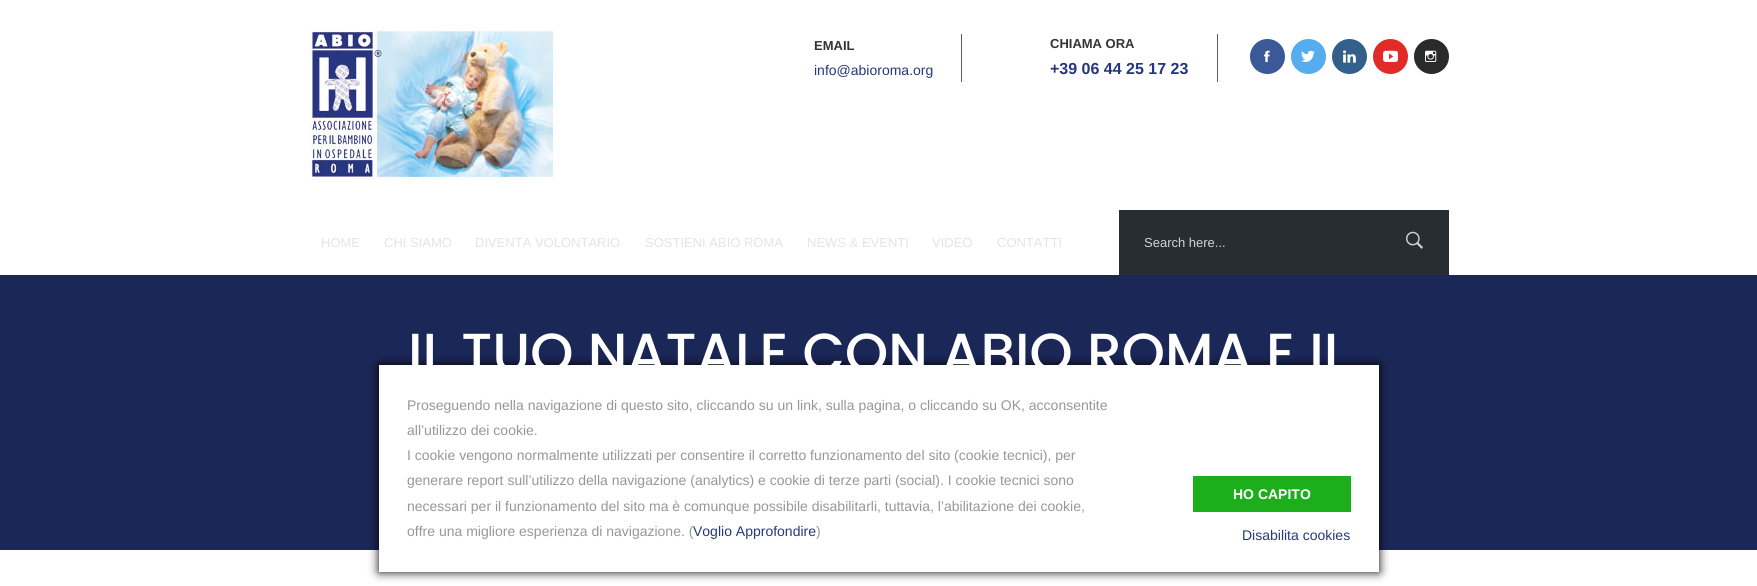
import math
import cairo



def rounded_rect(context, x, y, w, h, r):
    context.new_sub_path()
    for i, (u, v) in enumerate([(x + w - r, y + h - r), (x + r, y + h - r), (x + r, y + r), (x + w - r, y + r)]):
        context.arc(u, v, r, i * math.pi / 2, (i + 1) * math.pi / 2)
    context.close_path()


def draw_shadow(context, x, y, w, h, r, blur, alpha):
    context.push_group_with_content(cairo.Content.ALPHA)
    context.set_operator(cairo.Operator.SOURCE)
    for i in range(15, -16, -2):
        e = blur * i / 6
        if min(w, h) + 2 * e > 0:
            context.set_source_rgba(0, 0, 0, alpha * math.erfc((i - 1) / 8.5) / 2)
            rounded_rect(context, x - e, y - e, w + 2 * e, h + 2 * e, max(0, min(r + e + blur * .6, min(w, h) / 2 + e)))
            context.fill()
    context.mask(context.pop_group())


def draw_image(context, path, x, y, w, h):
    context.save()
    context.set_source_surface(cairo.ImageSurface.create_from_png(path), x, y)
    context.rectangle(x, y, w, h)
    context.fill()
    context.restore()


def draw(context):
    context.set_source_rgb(1, 1, 1)
    context.paint()
    draw_image(context, "images/1.png", 309, 30, 244, 150)
    context.set_source_rgb(90 / 255, 94 / 255, 99 / 255)
    context.rectangle(961, 34, 1, 48)
    context.fill()
    context.rectangle(1217, 34, 1, 48)
    context.fill()
    context.set_source_rgb(59 / 255, 89 / 255, 152 / 255)
    context.arc(1267.5, 56.5, 17.5, 0, 2 * math.pi)
    context.fill()
    draw_image(context, "images/2.png", 1264, 50, 6, 12)
    context.set_source_rgb(85 / 255, 172 / 255, 238 / 255)
    context.arc(1308.5, 56.5, 17.5, 0, 2 * math.pi)
    context.fill()
    draw_image(context, "images/3.png", 1301, 50, 14, 12)
    context.set_source_rgb(50 / 255, 96 / 255, 138 / 255)
    context.arc(1349.5, 56.5, 17.5, 0, 2 * math.pi)
    context.fill()
    draw_image(context, "images/4.png", 1343, 50, 13, 13)
    context.set_source_rgb(226 / 255, 43 / 255, 38 / 255)
    context.arc(1390.5, 56.5, 17.5, 0, 2 * math.pi)
    context.fill()
    draw_image(context, "images/5.png", 1383, 50, 15, 12)
    context.set_source_rgb(42 / 255, 42 / 255, 42 / 255)
    context.arc(1431.5, 56.5, 17.5, 0, 2 * math.pi)
    context.fill()
    draw_image(context, "images/6.png", 1425, 50, 12, 12)
    context.set_source_rgb(40 / 255, 45 / 255, 52 / 255)
    context.rectangle(1119, 210, 330, 65)
    context.fill()
    draw_image(context, "images/7.png", 1406, 231, 17, 18)
    context.set_source_rgb(27 / 255, 39 / 255, 87 / 255)
    context.rectangle(0, 275, 1757, 275)
    context.fill()
    context.set_source_rgb(0, 0, 0)
    draw_shadow(context, 379, 365, 1000, 207, 0, 5, 1)
    context.set_source_rgb(1, 1, 1)
    context.rectangle(379, 365, 1000, 207)
    context.fill()
    context.set_source_rgb(29 / 255, 174 / 255, 28 / 255)
    context.rectangle(1193, 476, 158, 36)
    context.fill()
    context.select_font_face("Liberation Sans", cairo.FontSlant.NORMAL, cairo.FontWeight.BOLD)
    context.set_font_size(13)
    context.set_source_rgb(51 / 255, 51 / 255, 51 / 255)
    context.move_to(814, 50)
    context.show_text("EMAIL")
    context.select_font_face("Liberation Sans")
    context.set_font_size(14)
    context.set_source_rgb(38 / 255, 56 / 255, 123 / 255)
    context.move_to(814, 75)
    context.show_text("info@abioroma.org")
    context.select_font_face("Liberation Sans", cairo.FontSlant.NORMAL, cairo.FontWeight.BOLD)
    context.set_font_size(13)
    context.set_source_rgb(51 / 255, 51 / 255, 51 / 255)
    context.move_to(1050, 48)
    context.show_text("CHIAMA ORA")
    context.set_font_size(16)
    context.set_source_rgb(38 / 255, 56 / 255, 123 / 255)
    context.move_to(1050, 74)
    context.show_text("+39 06 44 25 17 23")
    context.select_font_face("Liberation Sans")
    context.set_font_size(13)
    context.set_source_rgb(228 / 255, 228 / 255, 228 / 255)
    context.move_to(321, 247)
    context.show_text("HOME")
    context.move_to(384, 247)
    context.show_text("CHI SIAMO")
    context.move_to(475, 247)
    context.show_text("DIVENTA VOLONTARIO")
    context.move_to(645, 247)
    context.show_text("SOSTIENI ABIO ROMA")
    context.move_to(807, 247)
    context.show_text("NEWS & EVENTI")
    context.move_to(932, 247)
    context.show_text("VIDEO")
    context.move_to(997, 247)
    context.show_text("CONTATTI")
    context.set_source_rgb(211 / 255, 211 / 255, 211 / 255)
    context.move_to(1144, 247)
    context.show_text("Search here...")
    context.select_font_face("Poppins Medium")
    context.set_font_size(55)
    context.set_source_rgb(1, 1, 1)
    context.move_to(408, 372)
    context.show_text("IL TUO NATALE CON ABIO ROMA E IL")
    context.select_font_face("Liberation Sans")
    context.set_font_size(14)
    context.set_source_rgb(151 / 255, 151 / 255, 151 / 255)
    context.move_to(407, 410)
    context.show_text("Proseguendo nella navigazione di questo sito, cliccando su un link, sulla pagina, o cliccando su OK, acconsentite")
    context.move_to(407, 435)
    context.show_text("all’utilizzo dei cookie.")
    context.move_to(407, 460)
    context.show_text("I cookie vengono normalmente utilizzati per consentire il corretto funzionamento del sito (cookie tecnici), per")
    context.move_to(407, 485)
    context.show_text("generare report sull’utilizzo della navigazione (analytics) e cookie di terze parti (social). I cookie tecnici sono")
    context.move_to(407, 511)
    context.show_text("necessari per il funzionamento del sito ma è comunque possibile disabilitarli, tuttavia, l’abilitazione dei cookie,")
    context.move_to(407, 536)
    context.show_text("offre una migliore esperienza di navigazione. (")
    context.set_source_rgb(38 / 255, 56 / 255, 123 / 255)
    context.move_to(693, 536)
    context.show_text("Voglio Approfondire")
    context.set_source_rgb(151 / 255, 151 / 255, 151 / 255)
    context.move_to(816, 536)
    context.show_text(")")
    context.select_font_face("Liberation Sans", cairo.FontSlant.NORMAL, cairo.FontWeight.BOLD)
    context.set_source_rgb(1, 1, 1)
    context.move_to(1233, 499)
    context.show_text("HO CAPITO")
    context.select_font_face("Liberation Sans")
    context.set_source_rgb(38 / 255, 56 / 255, 123 / 255)
    context.move_to(1242, 540)
    context.show_text("Disabilita cookies")


surface = cairo.ImageSurface(cairo.Format.RGB24, 1757, 586)
context = cairo.Context(surface)
options = cairo.FontOptions()
options.set_hint_metrics(cairo.HintMetrics.OFF)
options.set_hint_style(cairo.HintStyle.NONE)
context.set_font_options(options)
context.set_miter_limit(4)
draw(context)
surface.write_to_png("out.png")
